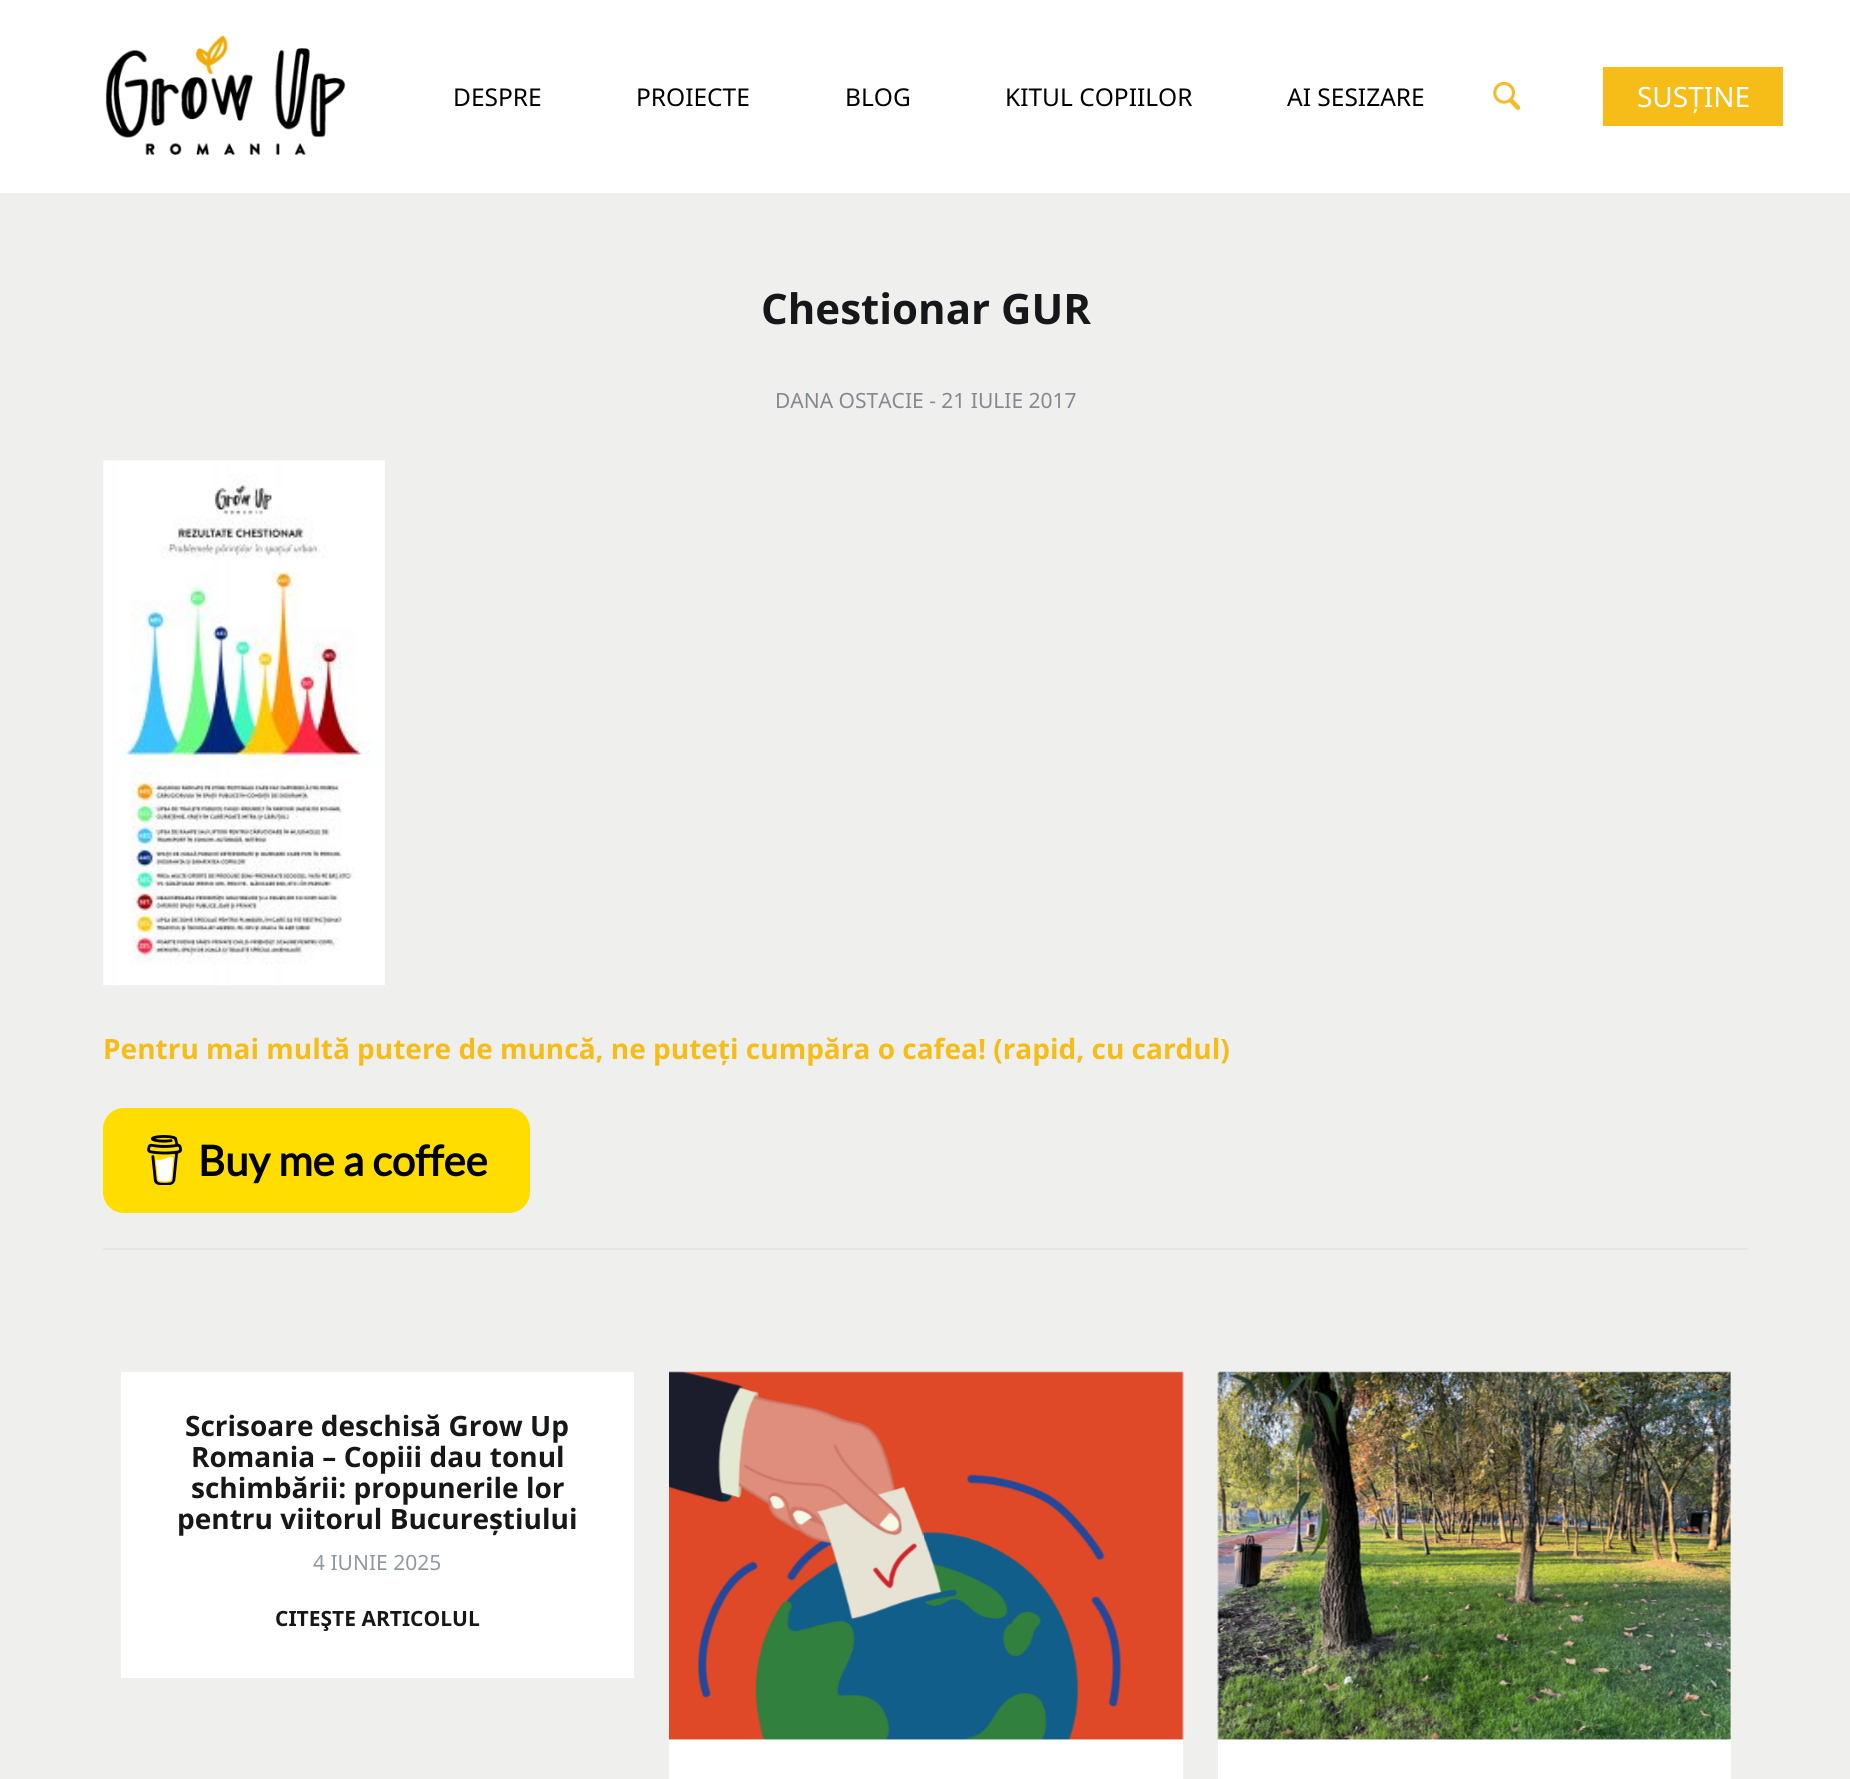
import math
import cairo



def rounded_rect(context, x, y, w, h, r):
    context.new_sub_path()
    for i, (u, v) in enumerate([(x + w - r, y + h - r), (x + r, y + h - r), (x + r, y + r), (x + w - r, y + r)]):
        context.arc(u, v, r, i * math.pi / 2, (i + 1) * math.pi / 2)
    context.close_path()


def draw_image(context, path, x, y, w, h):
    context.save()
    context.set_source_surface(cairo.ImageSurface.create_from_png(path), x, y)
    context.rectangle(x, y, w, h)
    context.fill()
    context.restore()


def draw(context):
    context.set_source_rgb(239 / 255, 239 / 255, 237 / 255)
    context.paint()
    context.set_source_rgb(1, 1, 1)
    context.rectangle(0, 0, 1850, 193)
    context.fill()
    draw_image(context, "images/1.png", 105, 35, 241, 120)
    draw_image(context, "images/2.png", 1493, 82, 28, 28)
    context.set_source_rgb(246 / 255, 188 / 255, 23 / 255)
    context.rectangle(1603, 67, 180, 59)
    context.fill()
    draw_image(context, "images/3.png", 103, 460, 282, 526)
    context.set_source_rgb(229 / 255, 229 / 255, 229 / 255)
    context.rectangle(103, 1248, 1645, 2)
    context.fill()
    context.set_source_rgb(1, 221 / 255, 0)
    rounded_rect(context, 103, 1108, 427, 105, 21)
    context.fill()
    draw_image(context, "images/4.png", 147, 1135, 35, 50)
    context.set_source_rgb(1, 1, 1)
    context.rectangle(121, 1372, 513, 306)
    context.fill()
    context.rectangle(669, 1372, 514, 407)
    context.fill()
    draw_image(context, "images/5.png", 669, 1371, 515, 369)
    context.rectangle(1218, 1372, 513, 407)
    context.fill()
    draw_image(context, "images/6.png", 1217, 1371, 514, 369)
    context.select_font_face("Noto Sans")
    context.set_font_size(24.5)
    context.set_source_rgb(0, 0, 0)
    context.move_to(453, 106)
    context.show_text("DESPRE")
    context.move_to(636, 106)
    context.show_text("PROIECTE")
    context.move_to(845, 106)
    context.show_text("BLOG")
    context.move_to(1005, 106)
    context.show_text("KITUL COPIILOR")
    context.move_to(1287, 106)
    context.show_text("AI SESIZARE")
    context.set_font_size(28)
    context.set_source_rgb(1, 1, 1)
    context.move_to(1637, 107)
    context.show_text("SUSȚINE")
    context.select_font_face("Noto Sans", cairo.FontSlant.NORMAL, cairo.FontWeight.BOLD)
    context.set_font_size(42)
    context.set_source_rgb(21 / 255, 23 / 255, 25 / 255)
    context.move_to(761, 324)
    context.show_text("Chestionar GUR")
    context.select_font_face("Noto Sans")
    context.set_font_size(21)
    context.set_source_rgb(131 / 255, 138 / 255, 143 / 255)
    context.move_to(775, 408)
    context.show_text("DANA OSTACIE - 21 IULIE 2017")
    context.select_font_face("Noto Sans", cairo.FontSlant.NORMAL, cairo.FontWeight.BOLD)
    context.set_font_size(28)
    context.set_source_rgb(246 / 255, 188 / 255, 23 / 255)
    context.move_to(103, 1059)
    context.show_text("Pentru mai multă putere de muncă, ne puteți cumpăra o cafea! (rapid, cu cardul)")
    context.select_font_face("Lato", cairo.FontSlant.NORMAL, cairo.FontWeight.BOLD)
    context.set_font_size(42)
    context.set_source_rgb(0, 0, 0)
    context.move_to(198, 1176)
    context.show_text("Buy me a coffee")
    context.select_font_face("Noto Sans", cairo.FontSlant.NORMAL, cairo.FontWeight.BOLD)
    context.set_font_size(28)
    context.set_source_rgb(21 / 255, 23 / 255, 25 / 255)
    context.move_to(185, 1436)
    context.show_text("Scrisoare deschisă Grow Up")
    context.move_to(191, 1467)
    context.show_text("Romania – Copiii dau tonul")
    context.move_to(191, 1498)
    context.show_text("schimbării: propunerile lor")
    context.move_to(177, 1529)
    context.show_text("pentru viitorul Bucureștiului")
    context.select_font_face("Noto Sans")
    context.set_font_size(21)
    context.set_source_rgb(143 / 255, 152 / 255, 161 / 255)
    context.move_to(313, 1570)
    context.show_text("4 IUNIE 2025")
    context.select_font_face("Noto Sans", cairo.FontSlant.NORMAL, cairo.FontWeight.BOLD)
    context.set_source_rgb(21 / 255, 23 / 255, 25 / 255)
    context.move_to(275, 1626)
    context.show_text("CITEŞTE ARTICOLUL")


surface = cairo.ImageSurface(cairo.Format.RGB24, 1850, 1779)
context = cairo.Context(surface)
options = cairo.FontOptions()
options.set_hint_metrics(cairo.HintMetrics.OFF)
options.set_hint_style(cairo.HintStyle.NONE)
context.set_font_options(options)
context.set_miter_limit(4)
draw(context)
surface.write_to_png("out.png")
